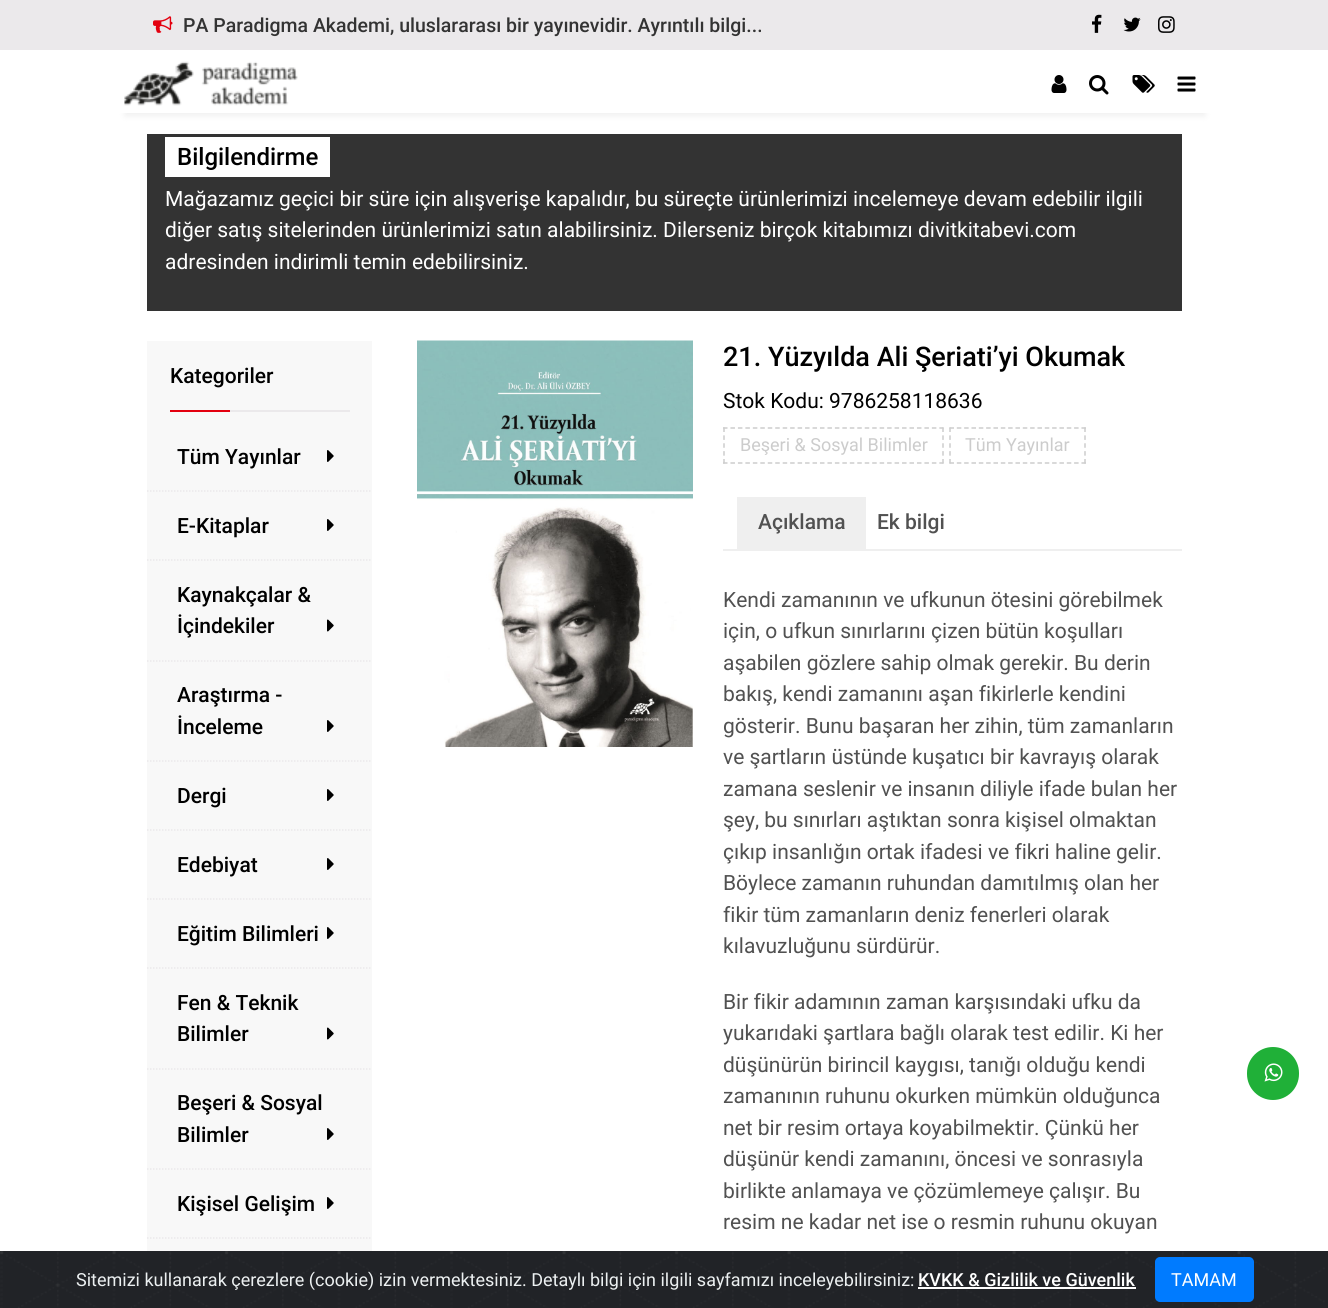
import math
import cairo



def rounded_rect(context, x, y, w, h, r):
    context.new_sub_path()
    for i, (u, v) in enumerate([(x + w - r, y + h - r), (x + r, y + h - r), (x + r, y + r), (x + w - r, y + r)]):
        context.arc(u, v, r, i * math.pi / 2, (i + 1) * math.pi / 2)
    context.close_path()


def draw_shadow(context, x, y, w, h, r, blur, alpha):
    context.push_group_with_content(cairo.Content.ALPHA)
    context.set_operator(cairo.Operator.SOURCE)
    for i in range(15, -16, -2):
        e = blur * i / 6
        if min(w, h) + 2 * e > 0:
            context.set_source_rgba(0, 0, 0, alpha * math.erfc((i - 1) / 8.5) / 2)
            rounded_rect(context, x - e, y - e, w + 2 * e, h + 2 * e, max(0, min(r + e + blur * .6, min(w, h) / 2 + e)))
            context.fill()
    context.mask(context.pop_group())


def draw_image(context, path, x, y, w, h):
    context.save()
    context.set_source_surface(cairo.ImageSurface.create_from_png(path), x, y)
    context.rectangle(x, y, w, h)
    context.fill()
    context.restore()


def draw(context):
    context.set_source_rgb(1, 1, 1)
    context.paint()
    context.set_source_rgb(235 / 255, 233 / 255, 235 / 255)
    context.rectangle(0, 0, 1328, 50)
    context.fill()
    draw_image(context, "images/1.png", 153, 16, 20, 17)
    draw_image(context, "images/2.png", 1092, 14, 10, 19)
    draw_image(context, "images/3.png", 1123, 17, 18, 15)
    draw_image(context, "images/4.png", 1158, 16, 17, 17)
    context.save()
    context.set_fill_rule(cairo.FillRule.EVEN_ODD)
    context.new_path()
    context.move_to(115, 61)
    context.line_to(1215, 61)
    context.line_to(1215, 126)
    context.line_to(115, 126)
    context.close_path()
    context.move_to(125, 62)
    context.line_to(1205, 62)
    context.line_to(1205, 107)
    context.line_to(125, 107)
    context.close_path()
    context.clip()
    context.set_source_rgb(240 / 255, 240 / 255, 240 / 255)
    draw_shadow(context, 125, 71, 1080, 45, 0, 3, 1)
    context.restore()
    context.rectangle(122, 59, 1086, 51)
    context.set_source_rgb(1, 1, 1)
    context.set_line_width(6)
    context.stroke()
    draw_image(context, "images/5.png", 124, 61, 174, 45)
    draw_image(context, "images/6.png", 1051, 75, 16, 18)
    draw_image(context, "images/7.png", 1089, 75, 20, 20)
    draw_image(context, "images/8.png", 1132, 75, 23, 18)
    draw_image(context, "images/9.png", 1177, 76, 19, 16)
    context.set_source_rgb(51 / 255, 51 / 255, 51 / 255)
    context.rectangle(147, 134, 1035, 177)
    context.fill()
    context.set_source_rgb(1, 1, 1)
    context.rectangle(165, 137, 165, 40)
    context.fill()
    context.set_source_rgb(248 / 255, 248 / 255, 248 / 255)
    context.rectangle(147, 341, 225, 910)
    context.fill()
    context.set_source_rgb(227 / 255, 0, 15 / 255)
    context.rectangle(170, 410, 60, 2)
    context.fill()
    context.set_source_rgb(235 / 255, 233 / 255, 235 / 255)
    context.rectangle(230, 410, 120, 2)
    context.fill()
    context.new_path()
    context.move_to(147, 491)
    context.line_to(372, 491)
    context.set_line_width(1.5)
    context.set_dash([1.5, 1.5])
    context.stroke()
    draw_image(context, "images/10.png", 327, 450, 7, 12)
    context.new_path()
    context.move_to(147, 560)
    context.line_to(372, 560)
    context.stroke()
    draw_image(context, "images/10.png", 327, 519, 7, 12)
    context.new_path()
    context.move_to(147, 661)
    context.line_to(372, 661)
    context.stroke()
    draw_image(context, "images/11.png", 327, 619, 7, 13)
    context.new_path()
    context.move_to(147, 761)
    context.line_to(372, 761)
    context.stroke()
    draw_image(context, "images/10.png", 327, 720, 7, 12)
    context.new_path()
    context.move_to(147, 830)
    context.line_to(372, 830)
    context.stroke()
    draw_image(context, "images/10.png", 327, 789, 7, 12)
    context.new_path()
    context.move_to(147, 899)
    context.line_to(372, 899)
    context.stroke()
    draw_image(context, "images/10.png", 327, 858, 7, 12)
    context.new_path()
    context.move_to(147, 968)
    context.line_to(372, 968)
    context.stroke()
    draw_image(context, "images/10.png", 327, 927, 7, 12)
    context.new_path()
    context.move_to(147, 1069)
    context.line_to(372, 1069)
    context.stroke()
    draw_image(context, "images/11.png", 327, 1027, 7, 13)
    context.new_path()
    context.move_to(147, 1169)
    context.line_to(372, 1169)
    context.stroke()
    draw_image(context, "images/10.png", 327, 1128, 7, 12)
    context.new_path()
    context.move_to(147, 1238)
    context.line_to(372, 1238)
    context.stroke()
    draw_image(context, "images/10.png", 327, 1197, 7, 12)
    draw_image(context, "images/12.png", 417, 340, 276, 407)
    context.new_path()
    context.move_to(723, 428)
    context.line_to(943.5, 428)
    context.set_source_rgb(204 / 255, 204 / 255, 204 / 255)
    context.set_dash([4.5, 2.96])
    context.stroke()
    context.new_path()
    context.move_to(943, 427.5)
    context.line_to(943, 463.5)
    context.set_dash([4.5, 3.38])
    context.stroke()
    context.new_path()
    context.move_to(723, 463)
    context.line_to(943.5, 463)
    context.set_dash([4.5, 2.96])
    context.stroke()
    context.new_path()
    context.move_to(724, 427.5)
    context.line_to(724, 463.5)
    context.set_dash([4.5, 3.38])
    context.stroke()
    context.new_path()
    context.move_to(949.5, 428)
    context.line_to(1086, 428)
    context.set_dash([4.5, 2.83])
    context.stroke()
    context.new_path()
    context.move_to(1085, 427.5)
    context.line_to(1085, 463.5)
    context.set_dash([4.5, 3.38])
    context.stroke()
    context.new_path()
    context.move_to(949.5, 463)
    context.line_to(1086, 463)
    context.set_dash([4.5, 2.83])
    context.stroke()
    context.new_path()
    context.move_to(950, 427.5)
    context.line_to(950, 463.5)
    context.set_dash([4.5, 3.38])
    context.stroke()
    context.set_source_rgb(239 / 255, 239 / 255, 239 / 255)
    context.rectangle(737, 497, 129, 52)
    context.fill()
    context.rectangle(723, 549, 459, 2)
    context.fill()
    context.set_source_rgb(32 / 255, 176 / 255, 56 / 255)
    rounded_rect(context, 1247, 1047, 52, 53, 26)
    context.fill()
    draw_image(context, "images/13.png", 1264, 1063, 19, 19)
    context.set_source_rgb(33 / 255, 35 / 255, 39 / 255)
    context.rectangle(1325, 1251, 3, 57)
    context.fill()
    draw_image(context, "images/14.png", 0, 1251, 1325, 57)
    context.set_source_rgb(1, 1, 1)
    context.rectangle(918, 1287, 218, 2)
    context.fill()
    context.set_source_rgb(0, 123 / 255, 1)
    rounded_rect(context, 1156, 1258, 97, 43, 4)
    context.fill_preserve()
    context.set_line_width(2)
    context.set_dash([])
    context.stroke()
    context.select_font_face("Roboto Medium")
    context.set_font_size(19.5)
    context.set_source_rgb(51 / 255, 51 / 255, 51 / 255)
    context.move_to(183, 32)
    context.show_text("PA Paradigma Akademi, uluslararası bir yayınevidir. Ayrıntılı bilgi...")
    context.set_font_size(24)
    context.set_source_rgb(0, 0, 0)
    context.move_to(177, 165)
    context.show_text("Bilgilendirme")
    context.select_font_face("Roboto")
    context.set_font_size(21)
    context.set_source_rgb(1, 1, 1)
    context.move_to(165, 206)
    context.show_text("Mağazamız geçici bir süre için alışverişe kapalıdır, bu süreçte ürünlerimizi incelemeye devam edebilir ilgili")
    context.move_to(165, 237)
    context.show_text("diğer satış sitelerinden ürünlerimizi satın alabilirsiniz. Dilerseniz birçok kitabımızı divitkitabevi.com")
    context.move_to(165, 269)
    context.show_text("adresinden indirimli temin edebilirsiniz.")
    context.select_font_face("Roboto Medium")
    context.set_source_rgb(0, 0, 0)
    context.move_to(170, 383)
    context.show_text("Kategoriler")
    context.move_to(177, 464)
    context.show_text("Tüm Yayınlar")
    context.move_to(177, 533)
    context.show_text("E-Kitaplar")
    context.move_to(177, 602)
    context.show_text("Kaynakçalar &")
    context.move_to(177, 633)
    context.show_text("İçindekiler")
    context.move_to(177, 702)
    context.show_text("Araştırma -")
    context.move_to(177, 734)
    context.show_text("İnceleme")
    context.move_to(177, 803)
    context.show_text("Dergi")
    context.move_to(177, 872)
    context.show_text("Edebiyat")
    context.move_to(177, 941)
    context.show_text("Eğitim Bilimleri")
    context.move_to(177, 1010)
    context.show_text("Fen & Teknik")
    context.move_to(177, 1041)
    context.show_text("Bilimler")
    context.move_to(177, 1110)
    context.show_text("Beşeri & Sosyal")
    context.move_to(177, 1142)
    context.show_text("Bilimler")
    context.move_to(177, 1211)
    context.show_text("Kişisel Gelişim")
    context.set_font_size(27)
    context.move_to(723, 366)
    context.show_text("21. Yüzyılda Ali Şeriati’yi Okumak")
    context.select_font_face("Roboto")
    context.set_font_size(21)
    context.move_to(723, 408)
    context.show_text("Stok Kodu: 9786258118636")
    context.set_font_size(18)
    context.set_source_rgb(204 / 255, 204 / 255, 204 / 255)
    context.move_to(740, 451)
    context.show_text("Beşeri & Sosyal Bilimler")
    context.move_to(965, 451)
    context.show_text("Tüm Yayınlar")
    context.select_font_face("Roboto Medium")
    context.set_font_size(21)
    context.set_source_rgb(81 / 255, 81 / 255, 81 / 255)
    context.move_to(758, 529)
    context.show_text("Açıklama")
    context.move_to(877, 529)
    context.show_text("Ek bilgi")
    context.select_font_face("Roboto")
    context.move_to(723, 607)
    context.show_text("Kendi zamanının ve ufkunun ötesini görebilmek")
    context.move_to(723, 638)
    context.show_text("için, o ufkun sınırlarını çizen bütün koşulları")
    context.move_to(723, 670)
    context.show_text("aşabilen gözlere sahip olmak gerekir. Bu derin")
    context.move_to(723, 701)
    context.show_text("bakış, kendi zamanını aşan fikirlerle kendini")
    context.move_to(723, 733)
    context.show_text("gösterir. Bunu başaran her zihin, tüm zamanların")
    context.move_to(723, 764)
    context.show_text("ve şartların üstünde kuşatıcı bir kavrayış olarak")
    context.move_to(723, 796)
    context.show_text("zamana seslenir ve insanın diliyle ifade bulan her")
    context.move_to(723, 827)
    context.show_text("şey, bu sınırları aştıktan sonra kişisel olmaktan")
    context.move_to(723, 859)
    context.show_text("çıkıp insanlığın ortak ifadesi ve fikri haline gelir.")
    context.move_to(723, 890)
    context.show_text("Böylece zamanın ruhundan damıtılmış olan her")
    context.move_to(723, 922)
    context.show_text("fikir tüm zamanların deniz fenerleri olarak")
    context.move_to(723, 953)
    context.show_text("kılavuzluğunu sürdürür.")
    context.move_to(723, 1009)
    context.show_text("Bir fikir adamının zaman karşısındaki ufku da")
    context.move_to(723, 1040)
    context.show_text("yukarıdaki şartlara bağlı olarak test edilir. Ki her")
    context.move_to(723, 1072)
    context.show_text("düşünürün birincil kaygısı, tanığı olduğu kendi")
    context.move_to(723, 1103)
    context.show_text("zamanının ruhunu okurken mümkün olduğunca")
    context.move_to(723, 1135)
    context.show_text("net bir resim ortaya koyabilmektir. Çünkü her")
    context.move_to(723, 1166)
    context.show_text("düşünür kendi zamanını, öncesi ve sonrasıyla")
    context.move_to(723, 1198)
    context.show_text("birlikte anlamaya ve çözümlemeye çalışır. Bu")
    context.move_to(723, 1229)
    context.show_text("resim ne kadar net ise o resmin ruhunu okuyan")
    context.set_font_size(18)
    context.set_source_rgb(236 / 255, 240 / 255, 241 / 255)
    context.move_to(76, 1286)
    context.show_text("Sitemizi kullanarak çerezlere (cookie) izin vermektesiniz. Detaylı bilgi için ilgili sayfamızı inceleyebilirsiniz:")
    context.select_font_face("Roboto Medium")
    context.set_source_rgb(1, 1, 1)
    context.move_to(918, 1286)
    context.show_text("KVKK & Gizlilik ve Güvenlik")
    context.select_font_face("Roboto")
    context.move_to(1171, 1286)
    context.show_text("TAMAM")


surface = cairo.ImageSurface(cairo.Format.RGB24, 1328, 1308)
context = cairo.Context(surface)
options = cairo.FontOptions()
options.set_hint_metrics(cairo.HintMetrics.OFF)
options.set_hint_style(cairo.HintStyle.NONE)
context.set_font_options(options)
context.set_miter_limit(4)
draw(context)
surface.write_to_png("out.png")
